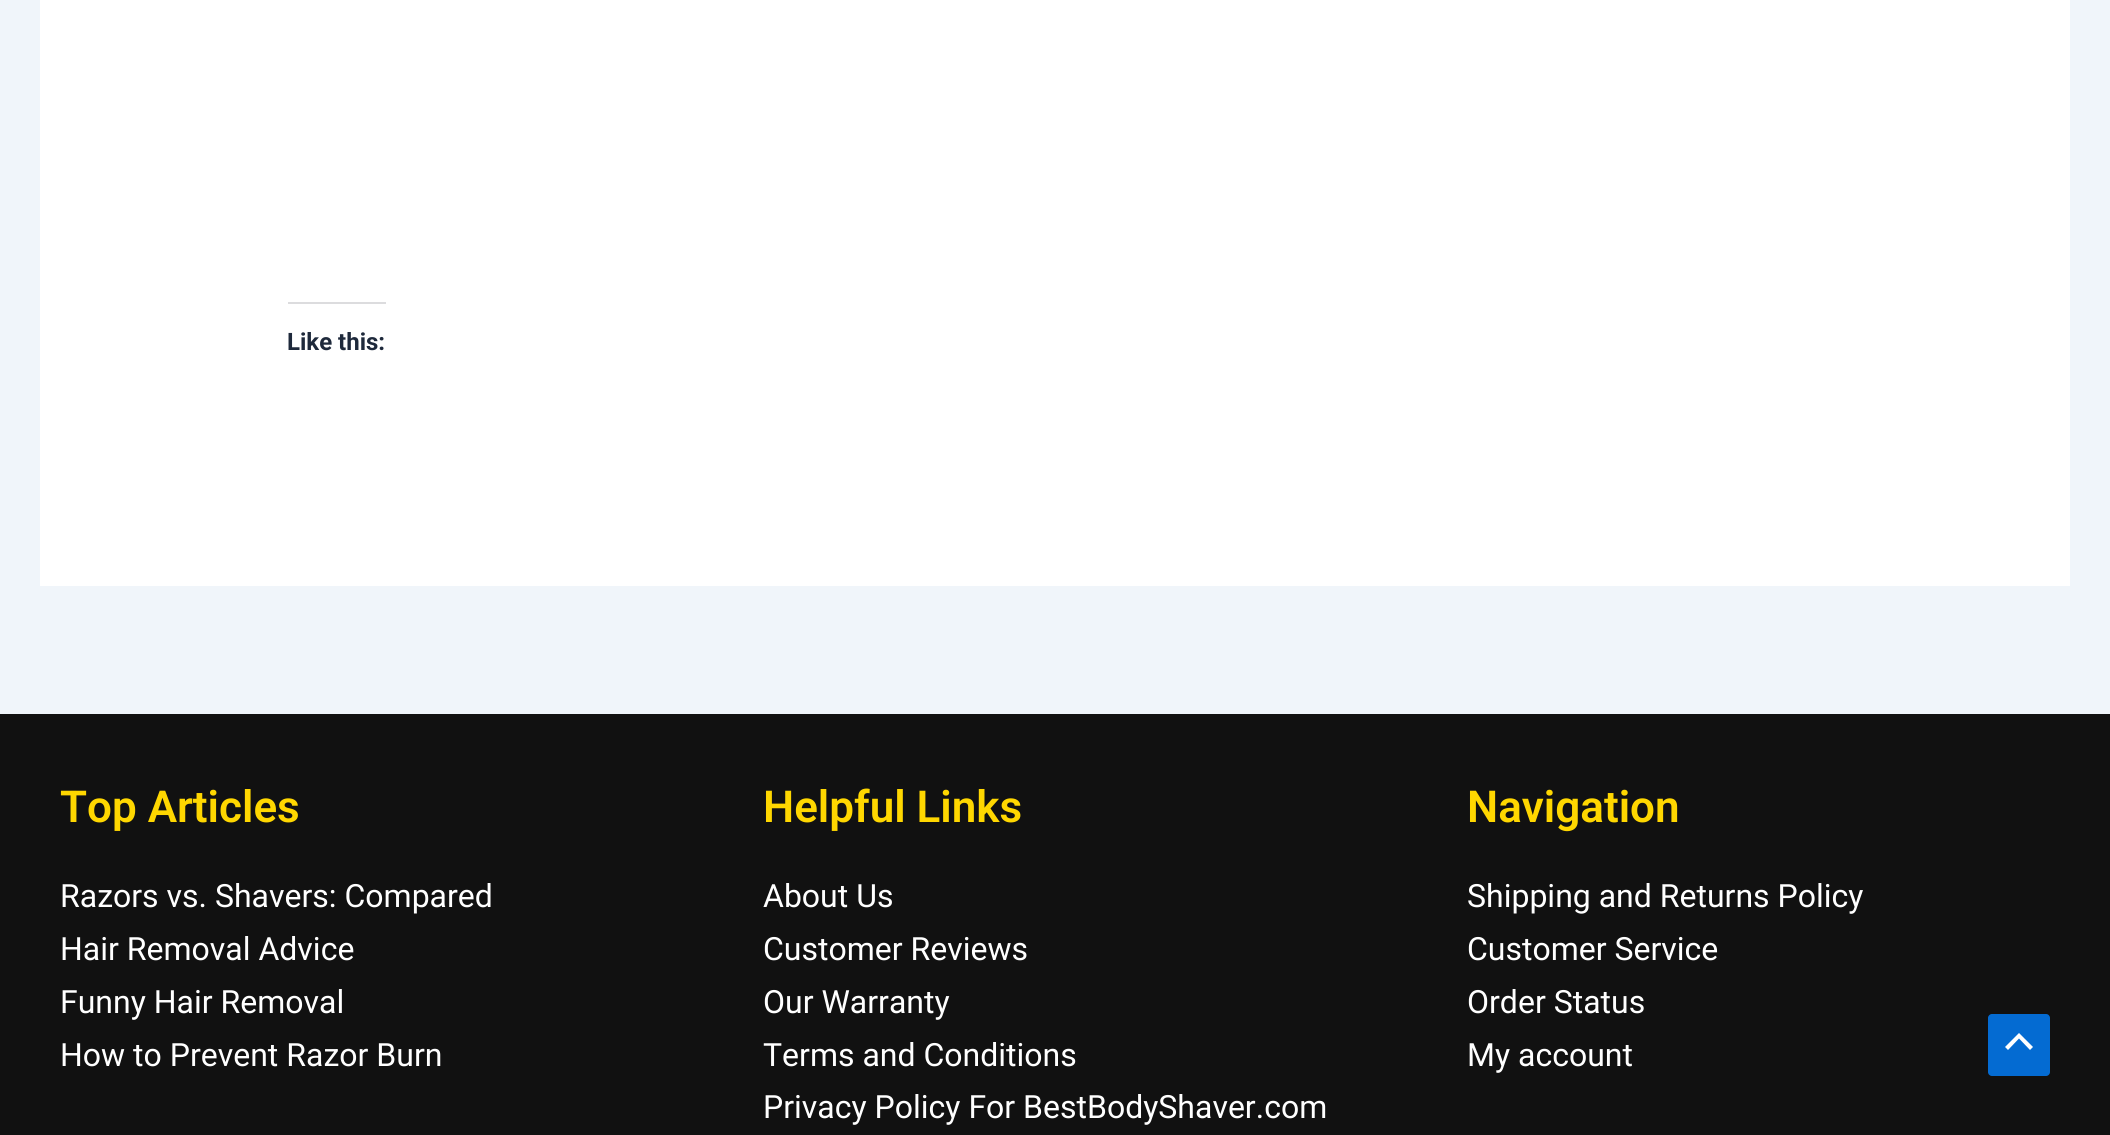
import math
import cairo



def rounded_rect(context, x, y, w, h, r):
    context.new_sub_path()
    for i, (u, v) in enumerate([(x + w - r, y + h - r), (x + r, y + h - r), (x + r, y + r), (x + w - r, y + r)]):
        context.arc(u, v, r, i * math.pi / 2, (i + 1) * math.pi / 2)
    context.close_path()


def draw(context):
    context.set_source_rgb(240 / 255, 245 / 255, 250 / 255)
    context.paint()
    context.set_source_rgb(1, 1, 1)
    context.rectangle(40, 0, 2030, 586)
    context.fill()
    context.set_source_rgb(220 / 255, 220 / 255, 222 / 255)
    context.rectangle(288, 302, 98, 2)
    context.fill()
    context.set_source_rgb(17 / 255, 17 / 255, 17 / 255)
    context.rectangle(0, 714, 2110, 421)
    context.fill()
    context.set_source_rgb(4 / 255, 107 / 255, 210 / 255)
    rounded_rect(context, 1988, 1014, 62, 62, 4)
    context.fill()
    context.set_source_rgb(1, 1, 1)
    context.new_path()
    context.move_to(2033, 1047)
    context.line_to(2019, 1033)
    context.line_to(2005, 1047)
    context.line_to(2008, 1050)
    context.line_to(2019, 1038.5)
    context.line_to(2030, 1050)
    context.close_path()
    context.fill()
    context.select_font_face("Roboto", cairo.FontSlant.NORMAL, cairo.FontWeight.BOLD)
    context.set_font_size(24)
    context.set_source_rgb(30 / 255, 41 / 255, 59 / 255)
    context.move_to(287, 350)
    context.show_text("Like this:")
    context.select_font_face("Roboto SemiBold")
    context.set_font_size(44)
    context.set_source_rgb(1, 215 / 255, 0)
    context.move_to(60, 822)
    context.show_text("Top Articles")
    context.select_font_face("Roboto")
    context.set_font_size(32)
    context.set_source_rgb(1, 1, 1)
    context.move_to(60, 907)
    context.show_text("Razors vs. Shavers: Compared")
    context.move_to(60, 960)
    context.show_text("Hair Removal Advice")
    context.move_to(60, 1013)
    context.show_text("Funny Hair Removal")
    context.move_to(60, 1066)
    context.show_text("How to Prevent Razor Burn")
    context.select_font_face("Roboto SemiBold")
    context.set_font_size(44)
    context.set_source_rgb(1, 215 / 255, 0)
    context.move_to(763, 822)
    context.show_text("Helpful Links")
    context.select_font_face("Roboto")
    context.set_font_size(32)
    context.set_source_rgb(1, 1, 1)
    context.move_to(763, 907)
    context.show_text("About Us")
    context.move_to(763, 960)
    context.show_text("Customer Reviews")
    context.move_to(763, 1013)
    context.show_text("Our Warranty")
    context.move_to(763, 1066)
    context.show_text("Terms and Conditions")
    context.move_to(763, 1118)
    context.show_text("Privacy Policy For BestBodyShaver.com")
    context.select_font_face("Roboto SemiBold")
    context.set_font_size(44)
    context.set_source_rgb(1, 215 / 255, 0)
    context.move_to(1467, 822)
    context.show_text("Navigation")
    context.select_font_face("Roboto")
    context.set_font_size(32)
    context.set_source_rgb(1, 1, 1)
    context.move_to(1467, 907)
    context.show_text("Shipping and Returns Policy")
    context.move_to(1467, 960)
    context.show_text("Customer Service")
    context.move_to(1467, 1013)
    context.show_text("Order Status")
    context.move_to(1467, 1066)
    context.show_text("My account")


surface = cairo.ImageSurface(cairo.Format.RGB24, 2110, 1135)
context = cairo.Context(surface)
options = cairo.FontOptions()
options.set_hint_metrics(cairo.HintMetrics.OFF)
options.set_hint_style(cairo.HintStyle.NONE)
context.set_font_options(options)
context.set_miter_limit(4)
draw(context)
surface.write_to_png("out.png")
